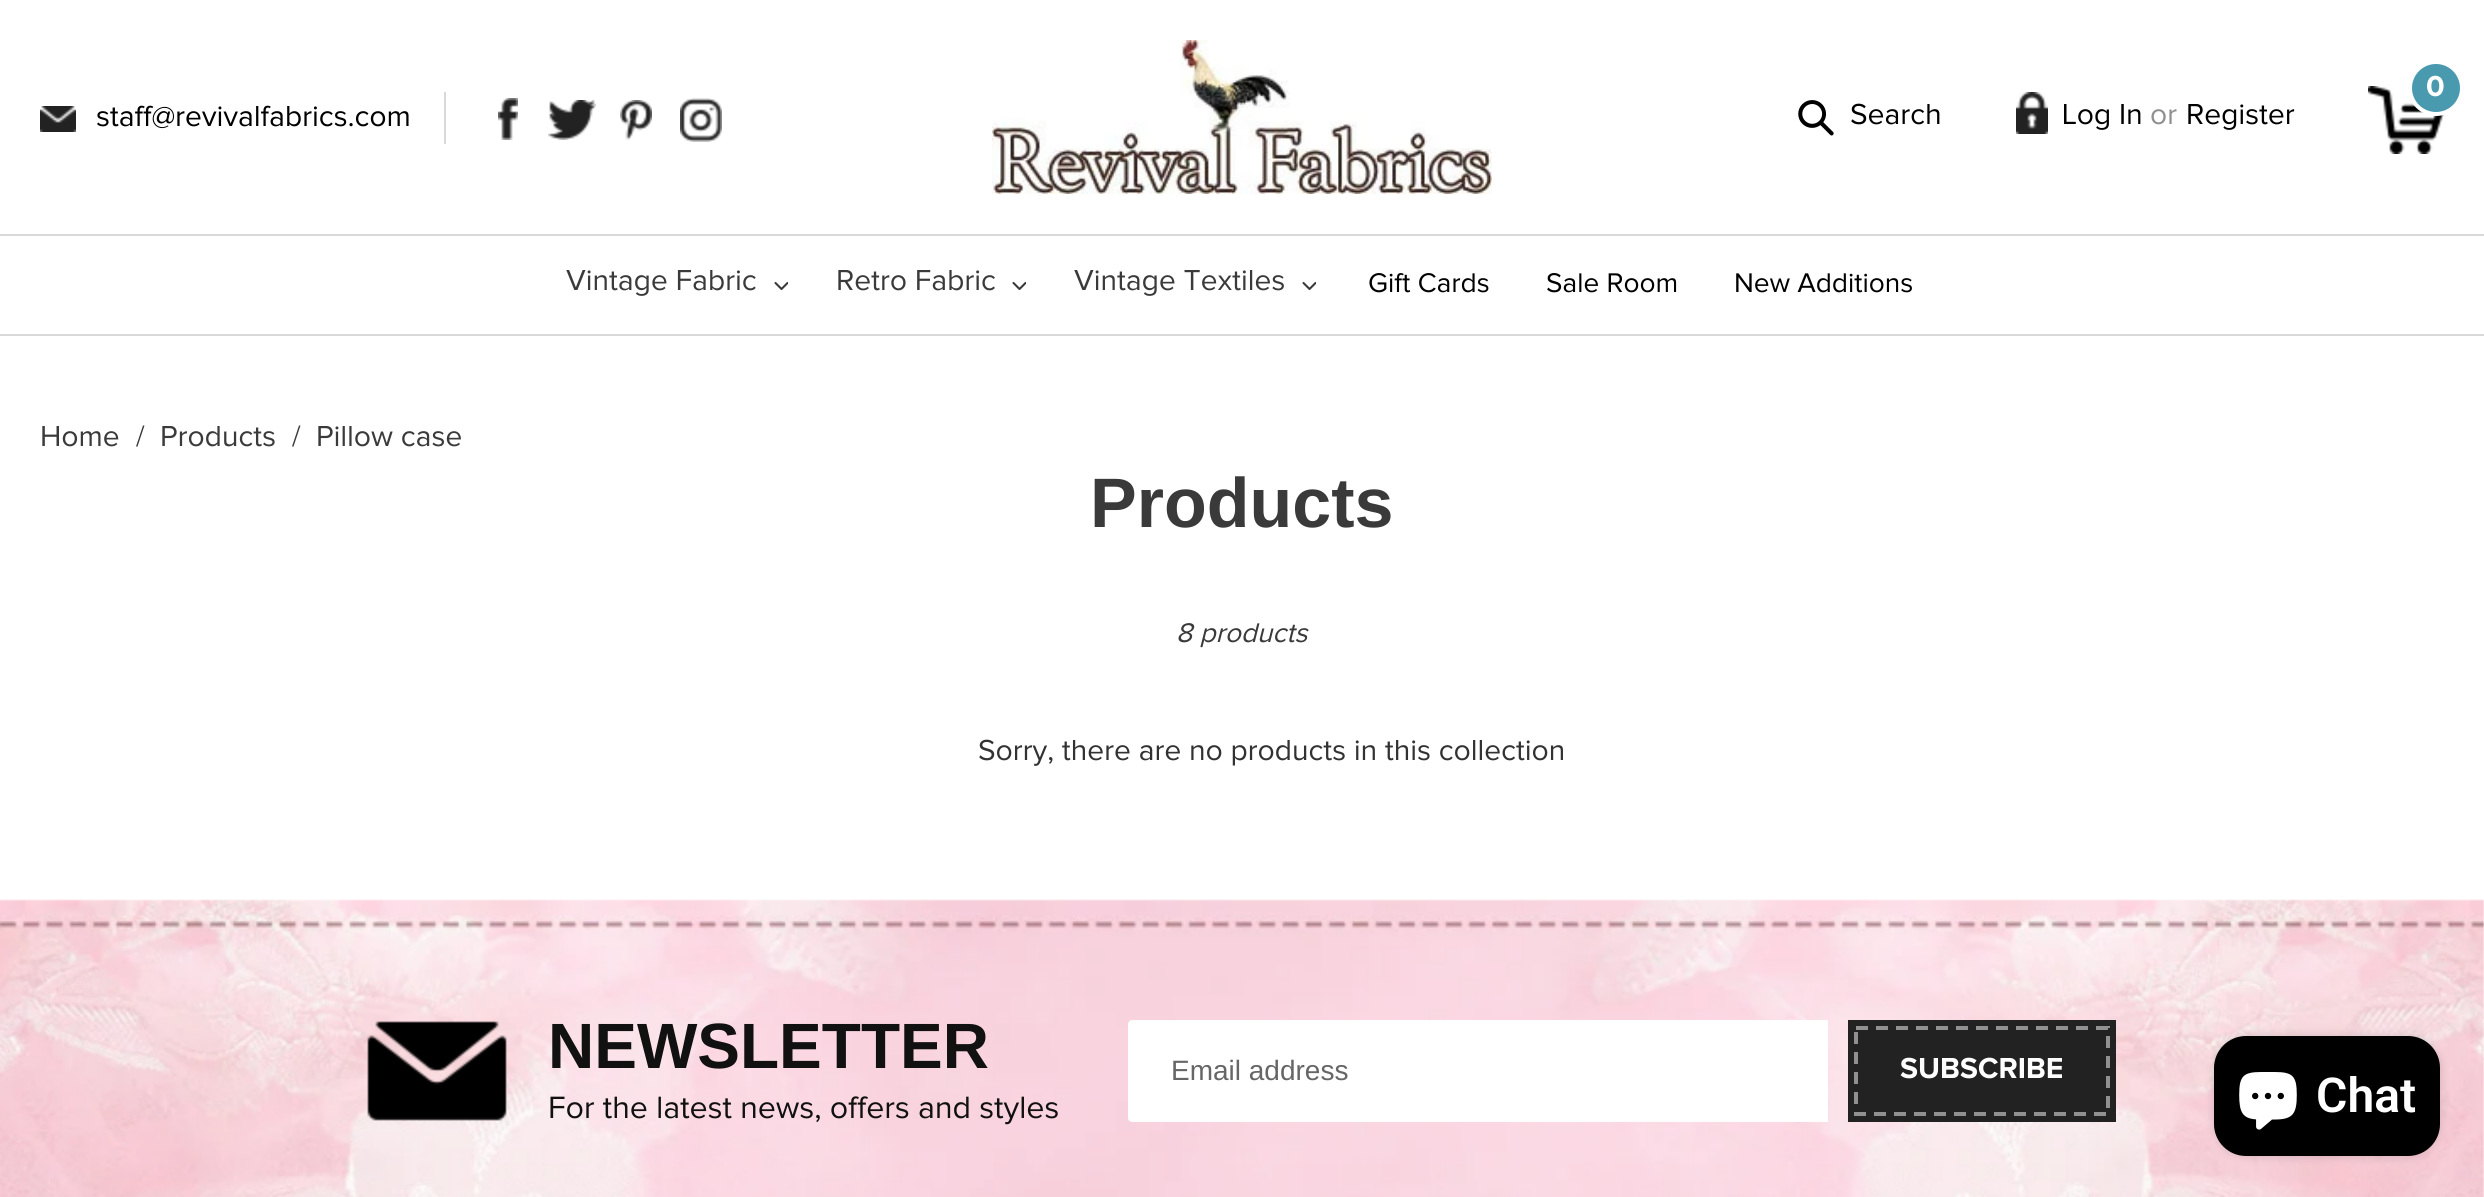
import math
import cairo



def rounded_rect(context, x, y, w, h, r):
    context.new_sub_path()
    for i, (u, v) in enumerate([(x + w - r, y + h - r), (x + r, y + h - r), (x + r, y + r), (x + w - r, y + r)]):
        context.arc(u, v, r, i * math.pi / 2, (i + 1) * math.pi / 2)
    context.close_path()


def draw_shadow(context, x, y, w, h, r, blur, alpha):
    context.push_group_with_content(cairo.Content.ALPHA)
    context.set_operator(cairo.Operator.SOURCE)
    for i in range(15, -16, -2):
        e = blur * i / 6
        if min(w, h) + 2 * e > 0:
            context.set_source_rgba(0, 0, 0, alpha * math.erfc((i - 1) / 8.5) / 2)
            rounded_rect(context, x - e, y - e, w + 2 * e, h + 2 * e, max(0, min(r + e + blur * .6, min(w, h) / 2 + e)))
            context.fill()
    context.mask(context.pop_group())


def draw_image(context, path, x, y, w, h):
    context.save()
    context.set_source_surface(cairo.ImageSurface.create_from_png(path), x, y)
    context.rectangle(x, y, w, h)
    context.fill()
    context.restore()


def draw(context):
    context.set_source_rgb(1, 1, 1)
    context.paint()
    draw_image(context, "images/1.png", 40, 106, 36, 26)
    draw_image(context, "images/2.png", 97, 105, 312, 24)
    context.set_source_rgb(217 / 255, 217 / 255, 217 / 255)
    context.rectangle(444, 92, 2, 52)
    context.fill()
    draw_image(context, "images/3.png", 498, 98, 20, 42)
    draw_image(context, "images/4.png", 548, 100, 48, 40)
    draw_image(context, "images/5.png", 620, 100, 32, 40)
    draw_image(context, "images/6.png", 680, 98, 42, 44)
    draw_image(context, "images/7.png", 992, 40, 500, 154)
    draw_image(context, "images/8.png", 1798, 100, 36, 36)
    draw_image(context, "images/9.png", 1851, 103, 89, 22)
    draw_image(context, "images/10.png", 2016, 92, 32, 42)
    draw_image(context, "images/11.png", 2064, 104, 77, 26)
    draw_image(context, "images/12.png", 2151, 109, 26, 16)
    draw_image(context, "images/13.png", 2188, 104, 107, 26)
    draw_image(context, "images/15.png", 2368, 86, 76, 68)
    context.set_source_rgb(73 / 255, 154 / 255, 175 / 255)
    context.arc(2436, 88, 26, 0, 2 * math.pi)
    context.fill_preserve()
    context.set_source_rgb(1, 1, 1)
    context.set_line_width(4)
    context.stroke()
    draw_image(context, "images/14.png", 2427, 75, 17, 22)
    context.set_source_rgb(217 / 255, 217 / 255, 217 / 255)
    context.rectangle(0, 334, 2484, 2)
    context.fill()
    context.rectangle(0, 234, 2484, 2)
    context.fill()
    draw_image(context, "images/16.png", 566, 270, 190, 26)
    draw_image(context, "images/17.png", 774, 282, 14, 8)
    draw_image(context, "images/18.png", 838, 270, 157, 21)
    draw_image(context, "images/17.png", 1012, 282, 14, 8)
    draw_image(context, "images/19.png", 1074, 270, 210, 26)
    draw_image(context, "images/17.png", 1302, 282, 14, 8)
    draw_image(context, "images/20.png", 1369, 273, 120, 20)
    draw_image(context, "images/21.png", 1547, 273, 130, 20)
    draw_image(context, "images/22.png", 1736, 273, 176, 20)
    draw_image(context, "images/23.png", 42, 426, 77, 21)
    context.set_source_rgb(58 / 255, 58 / 255, 58 / 255)
    context.new_path()
    context.move_to(137.5, 446.5)
    context.line_to(136, 446.5)
    context.line_to(143, 425.5)
    context.line_to(144.5, 425.5)
    context.close_path()
    context.fill()
    draw_image(context, "images/24.png", 162, 426, 113, 21)
    context.new_path()
    context.move_to(293.5, 446.5)
    context.line_to(292, 446.5)
    context.line_to(299, 425.5)
    context.line_to(300.5, 425.5)
    context.close_path()
    context.fill()
    draw_image(context, "images/25.png", 318, 426, 143, 21)
    draw_image(context, "images/26.png", 1178, 623, 131, 25)
    draw_image(context, "images/27.png", 979, 739, 584, 27)
    draw_image(context, "images/28.png", 0, 899, 2484, 298)
    draw_image(context, "images/29.png", 367, 1021, 140, 100)
    draw_image(context, "images/30.png", 550, 1096, 508, 29)
    context.set_source_rgb(1, 1, 1)
    context.new_path()
    context.move_to(1132, 1021)
    context.line_to(1827, 1021)
    context.line_to(1827, 1121)
    context.line_to(1132, 1121)
    context.curve_to(1130.5, 1121, 1129, 1119.5, 1129, 1118)
    context.line_to(1129, 1024)
    context.curve_to(1129, 1022.5, 1130.5, 1021, 1132, 1021)
    context.close_path()
    context.fill_preserve()
    context.set_line_width(2)
    context.stroke()
    context.set_source_rgb(34 / 255, 34 / 255, 34 / 255)
    context.rectangle(1848, 1020, 268, 102)
    context.fill()
    draw_image(context, "images/31.png", 1900, 1057, 162, 22)
    context.new_path()
    context.move_to(1856, 1028)
    context.line_to(2108, 1028)
    context.line_to(2108, 1114)
    context.line_to(1856, 1114)
    context.close_path()
    context.set_source_rgb(145 / 255, 145 / 255, 145 / 255)
    context.set_line_width(4)
    context.set_dash([12, 8])
    context.stroke()
    context.set_source_rgb(0, 0, 0)
    draw_shadow(context, 2214, 1036, 226, 120, 32, 5, 0.15)
    context.set_source_rgb(0, 0, 0)
    rounded_rect(context, 2214, 1036, 226, 120, 32)
    context.fill()
    draw_image(context, "images/32.png", 2239, 1072, 58, 58)
    context.select_font_face("Liberation Sans", cairo.FontSlant.NORMAL, cairo.FontWeight.BOLD)
    context.set_font_size(70)
    context.set_source_rgb(58 / 255, 58 / 255, 58 / 255)
    context.move_to(1090, 527)
    context.show_text("Products")
    context.set_font_size(64)
    context.set_source_rgb(17 / 255, 17 / 255, 17 / 255)
    context.move_to(548, 1068)
    context.show_text("NEWSLETTER")
    context.select_font_face("Liberation Sans")
    context.set_font_size(28)
    context.set_source_rgb(102 / 255, 102 / 255, 102 / 255)
    context.move_to(1171, 1080)
    context.show_text("Email address")
    context.select_font_face("Roboto SemiBold")
    context.set_font_size(48)
    context.set_source_rgb(1, 1, 1)
    context.move_to(2316, 1112)
    context.show_text("Chat")


surface = cairo.ImageSurface(cairo.Format.RGB24, 2484, 1197)
context = cairo.Context(surface)
options = cairo.FontOptions()
options.set_hint_metrics(cairo.HintMetrics.OFF)
options.set_hint_style(cairo.HintStyle.NONE)
context.set_font_options(options)
context.set_miter_limit(4)
draw(context)
surface.write_to_png("out.png")
